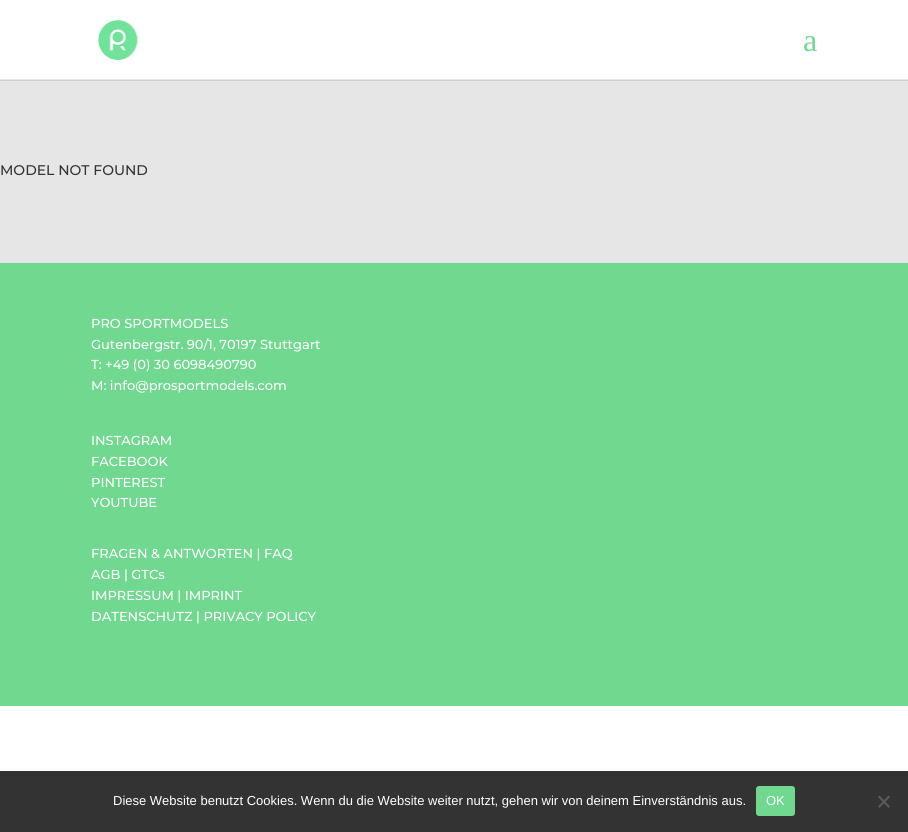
import math
import cairo



def rounded_rect(context, x, y, w, h, r):
    context.new_sub_path()
    for i, (u, v) in enumerate([(x + w - r, y + h - r), (x + r, y + h - r), (x + r, y + r), (x + w - r, y + r)]):
        context.arc(u, v, r, i * math.pi / 2, (i + 1) * math.pi / 2)
    context.close_path()


def draw_image(context, path, x, y, w, h):
    context.save()
    context.set_source_surface(cairo.ImageSurface.create_from_png(path), x, y)
    context.rectangle(x, y, w, h)
    context.fill()
    context.restore()


def draw(context):
    context.set_source_rgb(1, 1, 1)
    context.paint()
    context.set_source_rgb(230 / 255, 230 / 255, 230 / 255)
    context.rectangle(0, 79, 908, 184)
    context.fill()
    context.set_source_rgb(207 / 255, 207 / 255, 207 / 255)
    context.rectangle(0, 80, 908, 1)
    context.fill()
    draw_image(context, "images/1.png", 98, 20, 40, 40)
    context.set_source_rgb(113 / 255, 216 / 255, 144 / 255)
    context.rectangle(0, 263, 908, 443)
    context.fill()
    context.set_source_rgb(51 / 255, 51 / 255, 51 / 255)
    context.rectangle(0, 771, 908, 61)
    context.fill()
    context.set_source_rgb(113 / 255, 216 / 255, 144 / 255)
    rounded_rect(context, 756, 786, 39, 30, 3)
    context.fill()
    context.set_source_rgb(90 / 255, 90 / 255, 90 / 255)
    context.new_path()
    context.move_to(888.5, 795.5)
    context.line_to(890, 797)
    context.line_to(879.5, 808)
    context.line_to(878, 806.5)
    context.close_path()
    context.fill()
    context.new_path()
    context.move_to(878, 797)
    context.line_to(879.5, 795.5)
    context.line_to(890, 806.5)
    context.line_to(888.5, 808)
    context.close_path()
    context.fill()
    context.select_font_face("Liberation Serif")
    context.set_font_size(32)
    context.set_source_rgb(113 / 255, 217 / 255, 145 / 255)
    context.move_to(803, 51)
    context.show_text("a")
    context.select_font_face("Montserrat Medium")
    context.set_font_size(14)
    context.set_source_rgb(51 / 255, 51 / 255, 51 / 255)
    context.move_to(0, 175)
    context.show_text("MODEL NOT FOUND")
    context.set_font_size(13)
    context.set_source_rgb(1, 1, 1)
    context.move_to(91, 328)
    context.show_text("PRO SPORTMODELS")
    context.move_to(91, 349)
    context.show_text("Gutenbergstr. 90/1, 70197 Stuttgart")
    context.move_to(91, 369)
    context.show_text("T: +49 (0) 30 6098490790")
    context.move_to(91, 390)
    context.show_text("M: info@prosportmodels.com")
    context.move_to(91, 445)
    context.show_text("INSTAGRAM")
    context.move_to(91, 466)
    context.show_text("FACEBOOK")
    context.move_to(91, 487)
    context.show_text("PINTEREST")
    context.move_to(91, 507)
    context.show_text("YOUTUBE")
    context.move_to(91, 558)
    context.show_text("FRAGEN & ANTWORTEN | FAQ")
    context.move_to(91, 579)
    context.show_text("AGB | GTCs")
    context.move_to(91, 600)
    context.show_text("IMPRESSUM | IMPRINT")
    context.move_to(91, 621)
    context.show_text("DATENSCHUTZ | PRIVACY POLICY")
    context.select_font_face("Liberation Sans")
    context.move_to(113, 805)
    context.show_text("Diese Website benutzt Cookies. Wenn du die Website weiter nutzt, gehen wir von deinem Einverständnis aus.")
    context.move_to(766, 805)
    context.show_text("OK")


surface = cairo.ImageSurface(cairo.Format.RGB24, 908, 832)
context = cairo.Context(surface)
options = cairo.FontOptions()
options.set_hint_metrics(cairo.HintMetrics.OFF)
options.set_hint_style(cairo.HintStyle.NONE)
context.set_font_options(options)
context.set_miter_limit(4)
draw(context)
surface.write_to_png("out.png")
